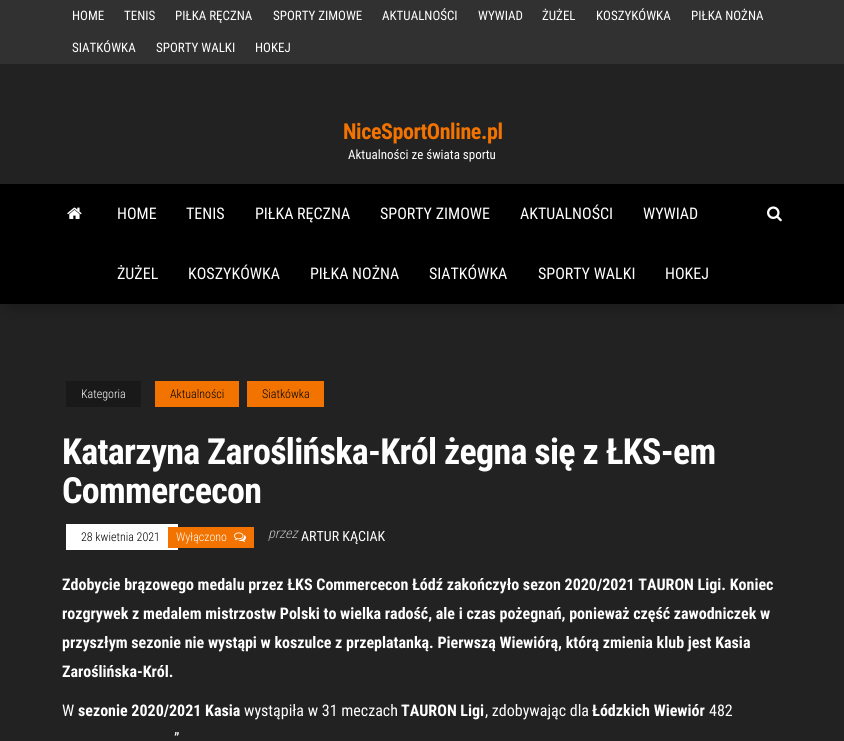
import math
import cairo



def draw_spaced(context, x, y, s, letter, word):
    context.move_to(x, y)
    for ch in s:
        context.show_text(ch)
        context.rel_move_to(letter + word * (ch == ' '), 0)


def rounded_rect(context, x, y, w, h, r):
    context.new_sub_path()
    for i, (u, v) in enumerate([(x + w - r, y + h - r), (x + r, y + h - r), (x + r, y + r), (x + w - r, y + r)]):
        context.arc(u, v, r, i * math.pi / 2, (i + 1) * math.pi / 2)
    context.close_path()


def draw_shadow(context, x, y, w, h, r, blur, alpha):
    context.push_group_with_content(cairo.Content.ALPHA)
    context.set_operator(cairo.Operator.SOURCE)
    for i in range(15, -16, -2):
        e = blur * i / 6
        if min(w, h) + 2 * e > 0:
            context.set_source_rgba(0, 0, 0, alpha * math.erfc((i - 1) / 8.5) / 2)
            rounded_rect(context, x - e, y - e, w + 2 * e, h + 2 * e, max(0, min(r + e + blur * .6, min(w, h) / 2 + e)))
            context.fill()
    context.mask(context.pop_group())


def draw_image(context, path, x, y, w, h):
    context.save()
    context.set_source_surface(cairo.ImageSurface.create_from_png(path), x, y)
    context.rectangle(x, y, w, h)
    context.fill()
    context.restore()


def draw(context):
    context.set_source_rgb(34 / 255, 34 / 255, 34 / 255)
    context.paint()
    context.set_source_rgb(49 / 255, 49 / 255, 49 / 255)
    context.rectangle(0, 0, 844, 64)
    context.fill()
    context.set_source_rgb(0, 0, 0)
    draw_shadow(context, 12, 206, 820, 96, 0, 10, 0.42)
    context.set_source_rgb(0, 0, 0)
    context.rectangle(0, 184, 844, 120)
    context.fill()
    draw_image(context, "images/1.png", 67, 207, 15, 12)
    draw_image(context, "images/2.png", 767, 206, 15, 16)
    context.set_source_rgb(25 / 255, 25 / 255, 25 / 255)
    context.rectangle(66, 381, 75, 26)
    context.fill()
    context.set_source_rgb(242 / 255, 115 / 255, 0)
    context.rectangle(155, 381, 84, 26)
    context.fill()
    context.rectangle(247, 381, 77, 26)
    context.fill()
    context.set_source_rgb(1, 1, 1)
    context.rectangle(66, 524, 112, 26)
    context.fill()
    context.set_source_rgb(242 / 255, 115 / 255, 0)
    context.rectangle(168, 527, 86, 21)
    context.fill()
    draw_image(context, "images/3.png", 234, 532, 12, 10)
    context.select_font_face("Roboto Condensed")
    context.set_font_size(13)
    context.set_source_rgb(1, 1, 1)
    context.move_to(72, 20)
    context.show_text("HOME")
    context.move_to(124, 20)
    context.show_text("TENIS")
    context.move_to(175, 20)
    context.show_text("PIŁKA RĘCZNA")
    context.move_to(273, 20)
    context.show_text("SPORTY ZIMOWE")
    context.move_to(382, 20)
    context.show_text("AKTUALNOŚCI")
    context.move_to(478, 20)
    context.show_text("WYWIAD")
    context.move_to(542, 20)
    context.show_text("ŻUŻEL")
    context.move_to(596, 20)
    context.show_text("KOSZYKÓWKA")
    context.move_to(691, 20)
    context.show_text("PIŁKA NOŻNA")
    context.move_to(72, 52)
    context.show_text("SIATKÓWKA")
    context.move_to(156, 52)
    context.show_text("SPORTY WALKI")
    context.move_to(255, 52)
    context.show_text("HOKEJ")
    context.select_font_face("Roboto Condensed", cairo.FontSlant.NORMAL, cairo.FontWeight.BOLD)
    context.set_font_size(22)
    context.set_source_rgb(242 / 255, 115 / 255, 0)
    draw_spaced(context, 343, 139, "NiceSportOnline.pl", -0.4, 0)
    context.select_font_face("Roboto Condensed")
    context.set_font_size(13)
    context.set_source_rgb(1, 1, 1)
    context.move_to(348, 159)
    context.show_text("Aktualności ze świata sportu")
    context.set_font_size(16)
    context.move_to(117, 219)
    context.show_text("HOME")
    context.move_to(186, 219)
    context.show_text("TENIS")
    context.move_to(255, 219)
    context.show_text("PIŁKA RĘCZNA")
    context.move_to(380, 219)
    context.show_text("SPORTY ZIMOWE")
    context.move_to(520, 219)
    context.show_text("AKTUALNOŚCI")
    context.move_to(643, 219)
    context.show_text("WYWIAD")
    context.move_to(117, 279)
    context.show_text("ŻUŻEL")
    context.move_to(188, 279)
    context.show_text("KOSZYKÓWKA")
    context.move_to(310, 279)
    context.show_text("PIŁKA NOŻNA")
    context.move_to(429, 279)
    context.show_text("SIATKÓWKA")
    context.move_to(538, 279)
    context.show_text("SPORTY WALKI")
    context.move_to(665, 279)
    context.show_text("HOKEJ")
    context.select_font_face("Roboto Condensed Light")
    context.set_font_size(12)
    context.move_to(81, 398)
    context.show_text("Kategoria")
    context.set_source_rgb(0, 0, 0)
    context.move_to(170, 398)
    context.show_text("Aktualności")
    context.move_to(262, 398)
    context.show_text("Siatkówka")
    context.select_font_face("Roboto Condensed", cairo.FontSlant.NORMAL, cairo.FontWeight.BOLD)
    context.set_font_size(36)
    context.set_source_rgb(1, 1, 1)
    draw_spaced(context, 62, 464, "Katarzyna Zaroślińska-Król żegna się z ŁKS-em", -0.7, 0)
    draw_spaced(context, 62, 503, "Commercecon", -0.7, 0)
    context.select_font_face("Roboto Condensed Light")
    context.set_font_size(12)
    context.set_source_rgb(0, 0, 0)
    context.move_to(81, 541)
    context.show_text("28 kwietnia 2021")
    context.set_source_rgb(1, 1, 1)
    context.move_to(176, 541)
    context.show_text("Wyłączono")
    context.select_font_face("Roboto Condensed Light", cairo.FontSlant.ITALIC)
    context.set_font_size(14)
    context.set_source_rgb(189 / 255, 189 / 255, 189 / 255)
    context.move_to(268, 538)
    context.show_text("przez")
    context.select_font_face("Roboto Condensed")
    context.set_source_rgb(1, 1, 1)
    context.move_to(301, 541)
    context.show_text("ARTUR KĄCIAK")
    context.select_font_face("Roboto Condensed", cairo.FontSlant.NORMAL, cairo.FontWeight.BOLD)
    context.set_font_size(16)
    context.move_to(62, 590)
    context.show_text("Zdobycie brązowego medalu przez ŁKS Commercecon Łódź zakończyło sezon 2020/2021 TAURON Ligi. Koniec")
    context.move_to(62, 619)
    context.show_text("rozgrywek z medalem mistrzostw Polski to wielka radość, ale i czas pożegnań, ponieważ część zawodniczek w")
    context.move_to(62, 648)
    context.show_text("przyszłym sezonie nie wystąpi w koszulce z przeplatanką. Pierwszą Wiewiórą, którą zmienia klub jest Kasia")
    context.move_to(62, 677)
    context.show_text("Zaroślińska-Król.")
    context.select_font_face("Roboto Condensed")
    context.move_to(62, 716)
    context.show_text("W")
    context.select_font_face("Roboto Condensed", cairo.FontSlant.NORMAL, cairo.FontWeight.BOLD)
    context.move_to(78, 716)
    context.show_text("sezonie 2020/2021 Kasia")
    context.select_font_face("Roboto Condensed")
    context.move_to(244, 716)
    context.show_text("wystąpiła w 31 meczach")
    context.select_font_face("Roboto Condensed", cairo.FontSlant.NORMAL, cairo.FontWeight.BOLD)
    context.move_to(401, 716)
    context.show_text("TAURON Ligi")
    context.select_font_face("Roboto Condensed")
    context.move_to(485, 716)
    context.show_text(", zdobywając dla")
    context.select_font_face("Roboto Condensed", cairo.FontSlant.NORMAL, cairo.FontWeight.BOLD)
    context.move_to(592, 716)
    context.show_text("Łódzkich Wiewiór")
    context.select_font_face("Roboto Condensed")
    context.move_to(709, 716)
    context.show_text("482")
    context.move_to(174, 744)
    context.show_text("”")


surface = cairo.ImageSurface(cairo.Format.RGB24, 844, 741)
context = cairo.Context(surface)
options = cairo.FontOptions()
options.set_hint_metrics(cairo.HintMetrics.OFF)
options.set_hint_style(cairo.HintStyle.NONE)
context.set_font_options(options)
context.set_miter_limit(4)
draw(context)
surface.write_to_png("out.png")
